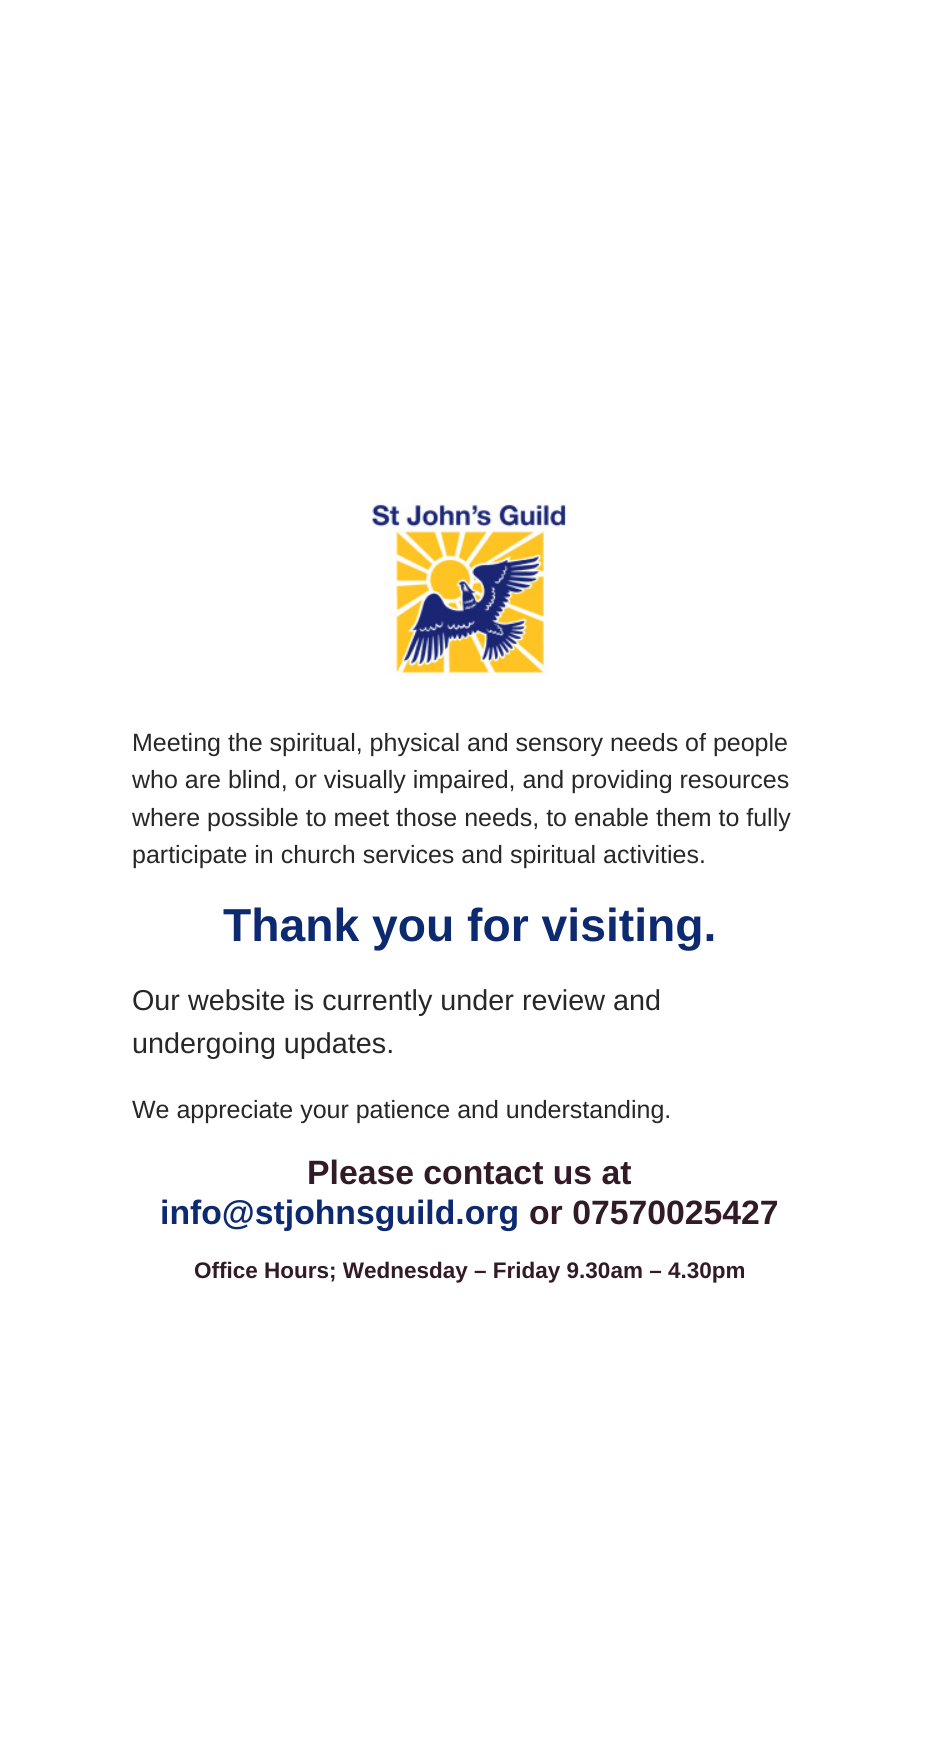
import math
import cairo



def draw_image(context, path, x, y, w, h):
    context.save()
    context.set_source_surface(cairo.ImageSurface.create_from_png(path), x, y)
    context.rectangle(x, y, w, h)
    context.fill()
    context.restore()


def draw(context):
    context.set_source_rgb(1, 1, 1)
    context.paint()
    draw_image(context, "images/1.png", 370, 496, 199, 180)
    context.select_font_face("Liberation Sans")
    context.set_font_size(25)
    context.set_source_rgb(39 / 255, 39 / 255, 39 / 255)
    context.move_to(132, 751)
    context.show_text("Meeting the spiritual, physical and sensory needs of people")
    context.move_to(132, 788)
    context.show_text("who are blind, or visually impaired, and providing resources")
    context.move_to(132, 826)
    context.show_text("where possible to meet those needs, to enable them to fully")
    context.move_to(132, 863)
    context.show_text("participate in church services and spiritual activities.")
    context.select_font_face("Liberation Sans", cairo.FontSlant.NORMAL, cairo.FontWeight.BOLD)
    context.set_font_size(46.25)
    context.set_source_rgb(13 / 255, 41 / 255, 112 / 255)
    context.move_to(223, 941)
    context.show_text("Thank you for visiting.")
    context.select_font_face("Liberation Sans")
    context.set_font_size(28.75)
    context.set_source_rgb(39 / 255, 39 / 255, 39 / 255)
    context.move_to(132, 1010)
    context.show_text("Our website is currently under review and")
    context.move_to(132, 1053)
    context.show_text("undergoing updates.")
    context.set_font_size(25)
    context.move_to(132, 1118)
    context.show_text("We appreciate your patience and understanding.")
    context.select_font_face("Liberation Sans", cairo.FontSlant.NORMAL, cairo.FontWeight.BOLD)
    context.set_font_size(33.75)
    context.set_source_rgb(50 / 255, 27 / 255, 38 / 255)
    context.move_to(307, 1184)
    context.show_text("Please contact us at")
    context.set_source_rgb(13 / 255, 41 / 255, 112 / 255)
    context.move_to(160, 1224)
    context.show_text("info@stjohnsguild.org")
    context.set_source_rgb(50 / 255, 27 / 255, 38 / 255)
    context.move_to(529, 1224)
    context.show_text("or 07570025427")
    context.set_font_size(22.5)
    context.move_to(194, 1278)
    context.show_text("Office Hours; Wednesday – Friday 9.30am – 4.30pm")


surface = cairo.ImageSurface(cairo.Format.RGB24, 938, 1761)
context = cairo.Context(surface)
options = cairo.FontOptions()
options.set_hint_metrics(cairo.HintMetrics.OFF)
options.set_hint_style(cairo.HintStyle.NONE)
context.set_font_options(options)
context.set_miter_limit(4)
draw(context)
surface.write_to_png("out.png")
